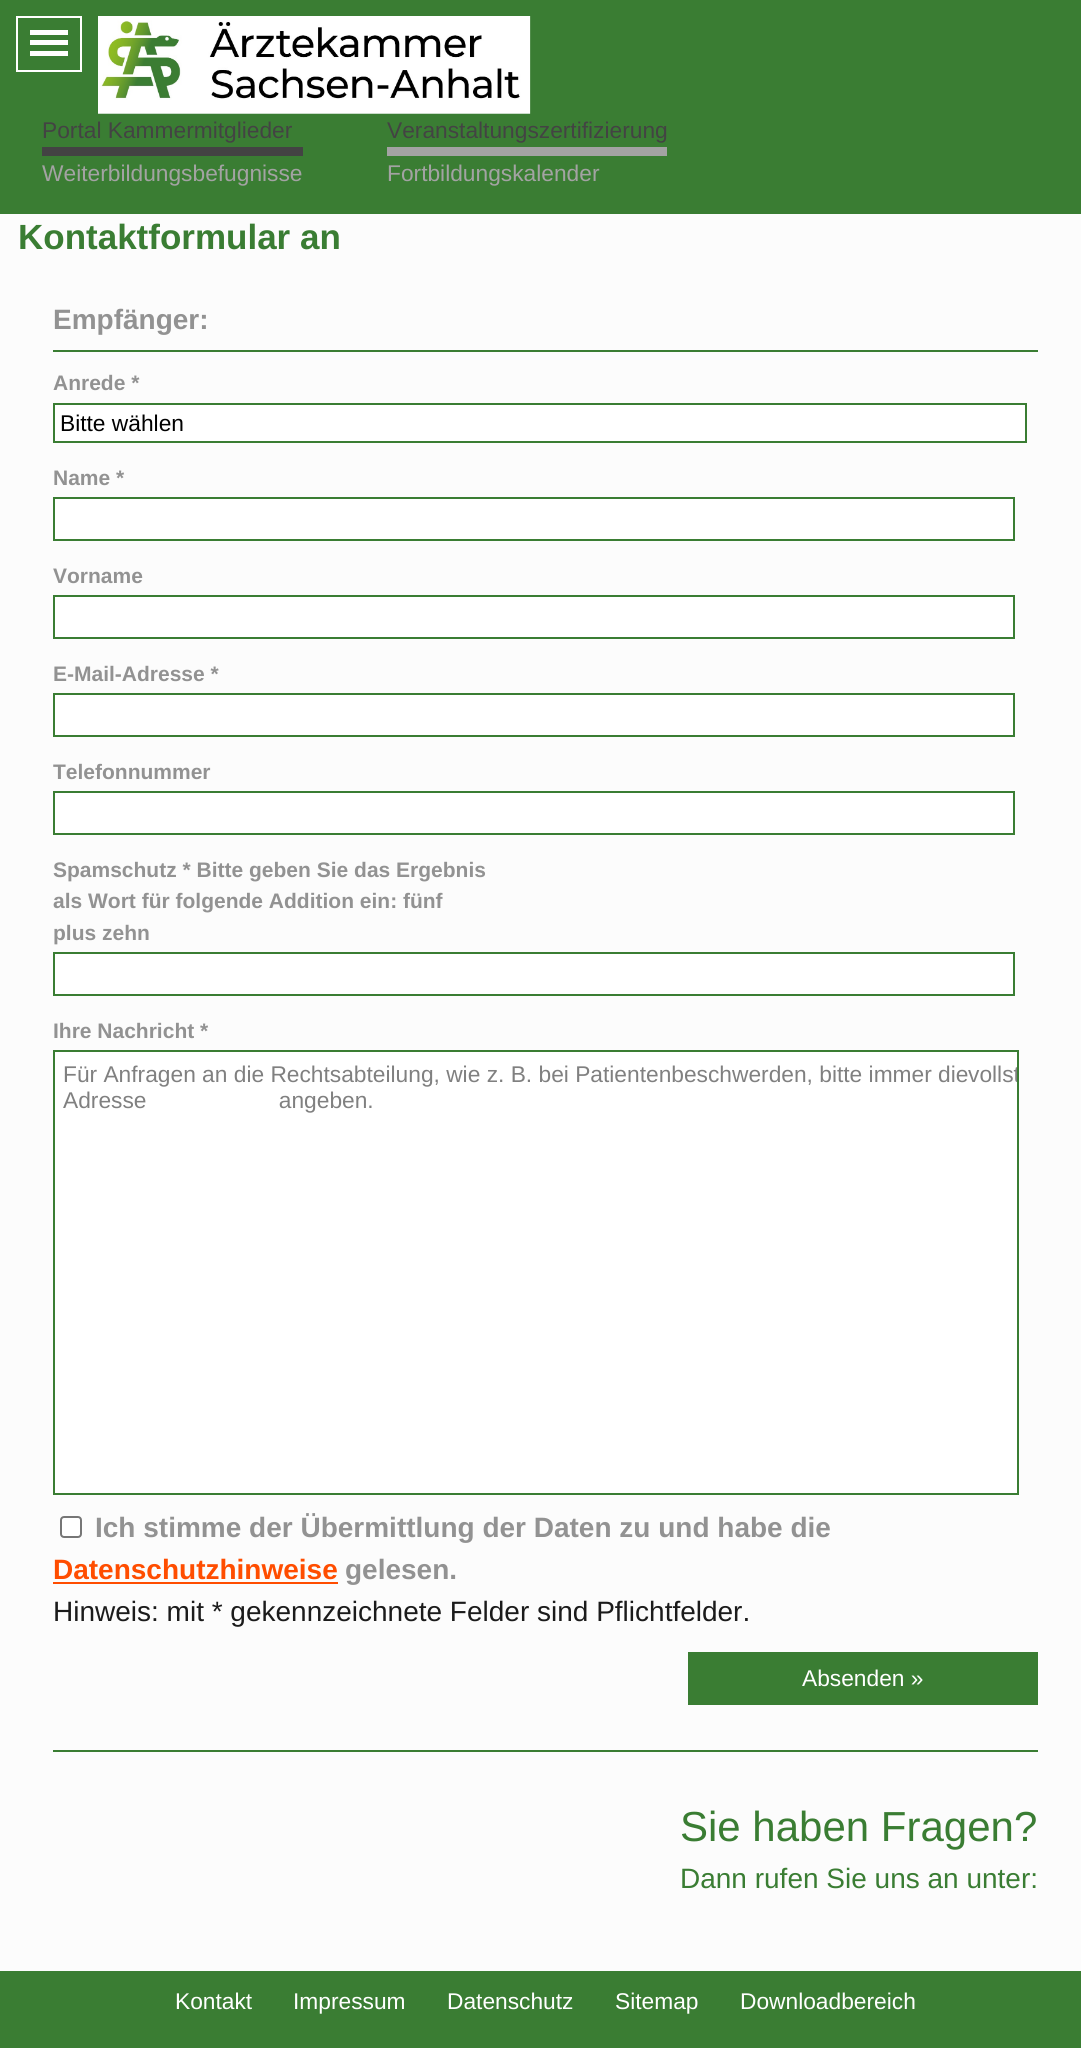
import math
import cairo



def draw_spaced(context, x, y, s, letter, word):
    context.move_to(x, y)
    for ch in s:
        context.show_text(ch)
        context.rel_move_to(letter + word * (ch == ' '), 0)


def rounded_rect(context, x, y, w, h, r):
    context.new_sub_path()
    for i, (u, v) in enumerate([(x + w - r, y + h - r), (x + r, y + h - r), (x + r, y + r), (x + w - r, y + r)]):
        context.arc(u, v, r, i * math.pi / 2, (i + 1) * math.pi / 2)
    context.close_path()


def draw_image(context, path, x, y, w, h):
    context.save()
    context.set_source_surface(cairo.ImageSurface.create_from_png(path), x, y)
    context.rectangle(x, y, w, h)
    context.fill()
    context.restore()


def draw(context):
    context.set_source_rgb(252 / 255, 252 / 255, 252 / 255)
    context.paint()
    context.set_source_rgb(58 / 255, 125 / 255, 51 / 255)
    context.rectangle(0, 0, 1081, 214)
    context.fill()
    context.rectangle(17, 17, 64, 54)
    context.set_source_rgb(1, 1, 1)
    context.stroke()
    context.rectangle(30, 30, 38, 5)
    context.fill()
    context.rectangle(30, 40, 38, 5)
    context.fill()
    context.rectangle(30, 51, 38, 5)
    context.fill()
    draw_image(context, "images/1.png", 98, 16, 433, 98)
    context.set_source_rgb(67 / 255, 67 / 255, 67 / 255)
    context.rectangle(42, 147, 261, 9)
    context.fill()
    context.set_source_rgb(163 / 255, 163 / 255, 163 / 255)
    context.rectangle(387, 147, 280, 9)
    context.fill()
    context.set_source_rgb(58 / 255, 125 / 255, 51 / 255)
    context.rectangle(53, 350, 985, 2)
    context.fill()
    context.set_source_rgb(1, 1, 1)
    context.rectangle(54, 404, 972, 38)
    context.fill_preserve()
    context.set_source_rgb(58 / 255, 125 / 255, 51 / 255)
    context.stroke()
    context.set_source_rgb(1, 1, 1)
    context.rectangle(54, 498, 960, 42)
    context.fill_preserve()
    context.set_source_rgb(58 / 255, 125 / 255, 51 / 255)
    context.stroke()
    context.set_source_rgb(1, 1, 1)
    context.rectangle(54, 596, 960, 42)
    context.fill_preserve()
    context.set_source_rgb(58 / 255, 125 / 255, 51 / 255)
    context.stroke()
    context.set_source_rgb(1, 1, 1)
    context.rectangle(54, 694, 960, 42)
    context.fill_preserve()
    context.set_source_rgb(58 / 255, 125 / 255, 51 / 255)
    context.stroke()
    context.set_source_rgb(1, 1, 1)
    context.rectangle(54, 792, 960, 42)
    context.fill_preserve()
    context.set_source_rgb(58 / 255, 125 / 255, 51 / 255)
    context.stroke()
    context.set_source_rgb(1, 1, 1)
    context.rectangle(54, 953, 960, 42)
    context.fill_preserve()
    context.set_source_rgb(58 / 255, 125 / 255, 51 / 255)
    context.stroke()
    context.set_source_rgb(1, 1, 1)
    context.rectangle(54, 1051, 964, 443)
    context.fill_preserve()
    context.set_source_rgb(58 / 255, 125 / 255, 51 / 255)
    context.stroke()
    context.set_source_rgb(1, 1, 1)
    rounded_rect(context, 61, 1517, 20, 20, 3)
    context.fill_preserve()
    context.set_source_rgb(118 / 255, 118 / 255, 118 / 255)
    context.stroke()
    context.set_source_rgb(1, 77 / 255, 0)
    context.rectangle(53, 1582, 285, 2)
    context.fill()
    context.set_source_rgb(58 / 255, 125 / 255, 51 / 255)
    context.rectangle(688, 1652, 350, 53)
    context.fill()
    context.rectangle(53, 1750, 985, 2)
    context.fill()
    context.rectangle(0, 1971, 1081, 77)
    context.fill()
    context.select_font_face("Liberation Sans")
    context.set_font_size(22.75)
    context.set_source_rgb(67 / 255, 67 / 255, 67 / 255)
    context.move_to(42, 138)
    context.show_text("Portal Kammermitglieder")
    context.set_source_rgb(163 / 255, 163 / 255, 163 / 255)
    context.move_to(42, 181)
    context.show_text("Weiterbildungsbefugnisse")
    context.set_source_rgb(67 / 255, 67 / 255, 67 / 255)
    context.move_to(387, 138)
    context.show_text("Veranstaltungszertifizierung")
    context.set_source_rgb(163 / 255, 163 / 255, 163 / 255)
    context.move_to(387, 181)
    context.show_text("Fortbildungskalender")
    context.select_font_face("Liberation Sans", cairo.FontSlant.NORMAL, cairo.FontWeight.BOLD)
    context.set_font_size(35)
    context.set_source_rgb(58 / 255, 125 / 255, 51 / 255)
    context.move_to(18, 249)
    context.show_text("Kontaktformular an")
    context.set_font_size(28)
    context.set_source_rgb(146 / 255, 146 / 255, 146 / 255)
    context.move_to(53, 329)
    context.show_text("Empfänger:")
    context.set_font_size(21)
    context.move_to(53, 390)
    context.show_text("Anrede *")
    context.select_font_face("Liberation Sans")
    context.set_font_size(22.75)
    context.set_source_rgb(0, 0, 0)
    context.move_to(60, 431)
    context.show_text("Bitte wählen")
    context.select_font_face("Liberation Sans", cairo.FontSlant.NORMAL, cairo.FontWeight.BOLD)
    context.set_font_size(21)
    context.set_source_rgb(146 / 255, 146 / 255, 146 / 255)
    context.move_to(53, 485)
    context.show_text("Name *")
    context.move_to(53, 583)
    context.show_text("Vorname")
    context.move_to(53, 681)
    context.show_text("E-Mail-Adresse *")
    context.move_to(53, 779)
    context.show_text("Telefonnummer")
    context.move_to(53, 877)
    context.show_text("Spamschutz * Bitte geben Sie das Ergebnis")
    context.move_to(53, 908)
    context.show_text("als Wort für folgende Addition ein: fünf")
    context.move_to(53, 940)
    context.show_text("plus zehn")
    context.move_to(53, 1038)
    context.show_text("Ihre Nachricht *")
    context.select_font_face("Liberation Sans")
    context.set_font_size(22.75)
    context.set_source_rgb(128 / 255, 128 / 255, 128 / 255)
    context.move_to(63, 1082)
    context.show_text("Für Anfragen an die Rechtsabteilung, wie z. B. bei Patientenbeschwerden, bitte immer die")
    context.save()
    context.rectangle(54, 1052, 963, 441)
    context.clip()
    context.move_to(968, 1082)
    context.show_text("vollst")
    context.restore()
    draw_spaced(context, 63, 1108, "Adresse angeben.", 0, 126)
    context.select_font_face("Liberation Sans", cairo.FontSlant.NORMAL, cairo.FontWeight.BOLD)
    context.set_font_size(28)
    context.set_source_rgb(146 / 255, 146 / 255, 146 / 255)
    context.move_to(95, 1537)
    context.show_text("Ich stimme der Übermittlung der Daten zu und habe die")
    context.set_source_rgb(1, 77 / 255, 0)
    context.move_to(53, 1579)
    context.show_text("Datenschutzhinweise")
    context.set_source_rgb(146 / 255, 146 / 255, 146 / 255)
    context.move_to(345, 1579)
    context.show_text("gelesen.")
    context.select_font_face("Liberation Sans")
    context.set_source_rgb(27 / 255, 27 / 255, 27 / 255)
    context.move_to(53, 1621)
    context.show_text("Hinweis: mit * gekennzeichnete Felder sind Pflichtfelder.")
    context.set_font_size(22.75)
    context.set_source_rgb(1, 1, 1)
    context.move_to(802, 1686)
    context.show_text("Absenden »")
    context.set_font_size(42)
    context.set_source_rgb(58 / 255, 125 / 255, 51 / 255)
    context.move_to(680, 1841)
    context.show_text("Sie haben Fragen?")
    context.set_font_size(28)
    context.move_to(680, 1888)
    context.show_text("Dann rufen Sie uns an unter:")
    context.set_font_size(22.75)
    context.set_source_rgb(1, 1, 1)
    context.move_to(175, 2009)
    context.show_text("Kontakt")
    context.move_to(293, 2009)
    context.show_text("Impressum")
    context.move_to(447, 2009)
    context.show_text("Datenschutz")
    context.move_to(615, 2009)
    context.show_text("Sitemap")
    context.move_to(740, 2009)
    context.show_text("Downloadbereich")


surface = cairo.ImageSurface(cairo.Format.RGB24, 1081, 2048)
context = cairo.Context(surface)
options = cairo.FontOptions()
options.set_hint_metrics(cairo.HintMetrics.OFF)
options.set_hint_style(cairo.HintStyle.NONE)
context.set_font_options(options)
context.set_miter_limit(4)
draw(context)
surface.write_to_png("out.png")
